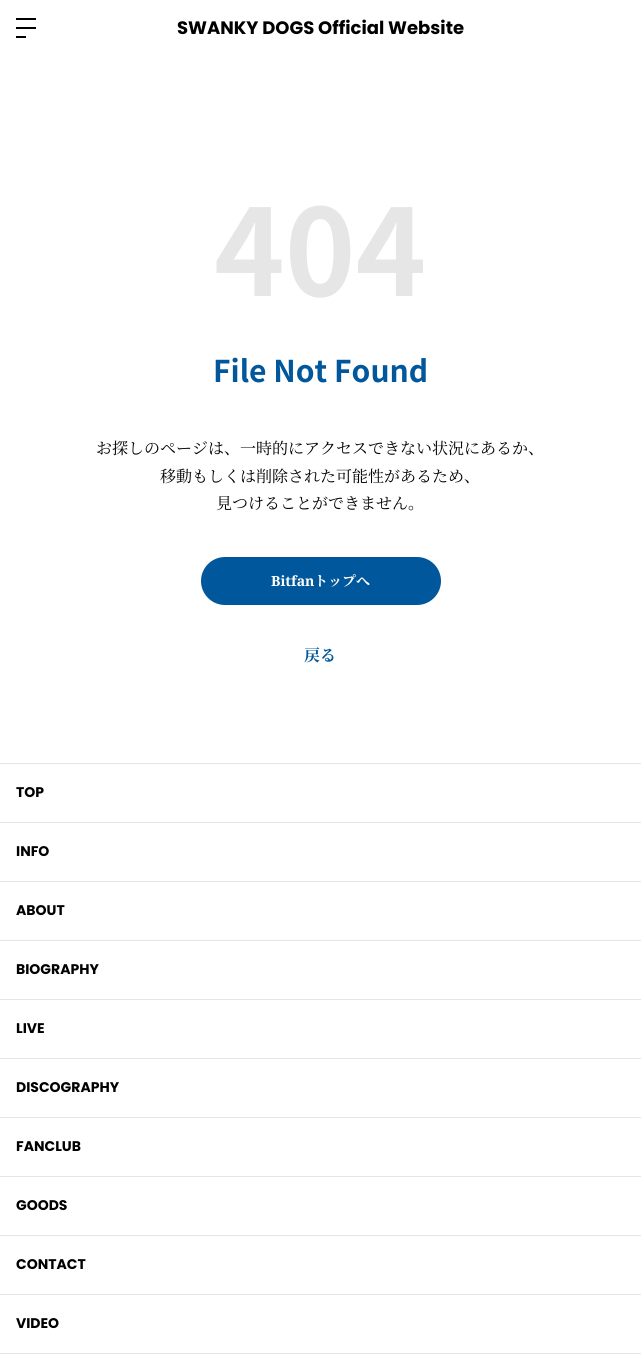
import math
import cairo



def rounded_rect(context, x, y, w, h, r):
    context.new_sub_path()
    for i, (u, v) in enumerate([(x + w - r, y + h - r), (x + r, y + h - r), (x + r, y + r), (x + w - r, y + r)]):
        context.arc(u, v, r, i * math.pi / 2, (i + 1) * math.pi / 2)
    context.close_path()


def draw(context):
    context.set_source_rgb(1, 1, 1)
    context.paint()
    context.set_source_rgb(0, 0, 0)
    context.rectangle(16, 18, 20, 2)
    context.fill()
    context.rectangle(16, 27, 20, 2)
    context.fill()
    context.rectangle(16, 36, 10, 2)
    context.fill()
    context.set_source_rgb(0, 87 / 255, 155 / 255)
    rounded_rect(context, 201, 557, 240, 48, 24)
    context.fill()
    context.set_source_rgb(230 / 255, 230 / 255, 230 / 255)
    context.rectangle(0, 763, 641, 1)
    context.fill()
    context.rectangle(0, 822, 641, 1)
    context.fill()
    context.rectangle(0, 881, 641, 1)
    context.fill()
    context.rectangle(0, 940, 641, 1)
    context.fill()
    context.rectangle(0, 999, 641, 1)
    context.fill()
    context.rectangle(0, 1058, 641, 1)
    context.fill()
    context.rectangle(0, 1117, 641, 1)
    context.fill()
    context.rectangle(0, 1176, 641, 1)
    context.fill()
    context.rectangle(0, 1235, 641, 1)
    context.fill()
    context.rectangle(0, 1294, 641, 1)
    context.fill()
    context.rectangle(0, 1353, 641, 1)
    context.fill()
    context.select_font_face("Poppins", cairo.FontSlant.NORMAL, cairo.FontWeight.BOLD)
    context.set_font_size(18)
    context.set_source_rgb(0, 0, 0)
    context.move_to(177, 34)
    context.show_text("SWANKY DOGS Official Website")
    context.select_font_face("Noto Sans JP", cairo.FontSlant.NORMAL, cairo.FontWeight.BOLD)
    context.set_font_size(120)
    context.set_source_rgb(230 / 255, 230 / 255, 230 / 255)
    context.move_to(214, 296)
    context.show_text("404")
    context.set_font_size(30)
    context.set_source_rgb(0, 87 / 255, 155 / 255)
    context.move_to(213, 382)
    context.show_text("File Not Found")
    context.select_font_face("Noto Serif JP")
    context.set_font_size(16)
    context.set_source_rgb(0, 0, 0)
    context.move_to(96, 454)
    context.show_text("お探しのページは、一時的にアクセスできない状況にあるか、")
    context.move_to(160, 482)
    context.show_text("移動もしくは削除された可能性があるため、")
    context.move_to(216, 509)
    context.show_text("見つけることができません。")
    context.select_font_face("Noto Serif", cairo.FontSlant.NORMAL, cairo.FontWeight.BOLD)
    context.set_font_size(14)
    context.set_source_rgb(1, 1, 1)
    context.move_to(271, 586)
    context.show_text("Bitfan")
    context.select_font_face("Noto Serif JP", cairo.FontSlant.NORMAL, cairo.FontWeight.BOLD)
    context.move_to(314, 586)
    context.show_text("トップへ")
    context.set_font_size(16)
    context.set_source_rgb(0, 87 / 255, 155 / 255)
    context.move_to(304, 661)
    context.show_text("戻る")
    context.select_font_face("Poppins", cairo.FontSlant.NORMAL, cairo.FontWeight.BOLD)
    context.set_font_size(14)
    context.set_source_rgb(0, 0, 0)
    context.move_to(16, 797)
    context.show_text("TOP")
    context.move_to(16, 856)
    context.show_text("INFO")
    context.move_to(16, 915)
    context.show_text("ABOUT")
    context.move_to(16, 974)
    context.show_text("BIOGRAPHY")
    context.move_to(16, 1033)
    context.show_text("LIVE")
    context.move_to(16, 1092)
    context.show_text("DISCOGRAPHY")
    context.move_to(16, 1151)
    context.show_text("FANCLUB")
    context.move_to(16, 1210)
    context.show_text("GOODS")
    context.move_to(16, 1269)
    context.show_text("CONTACT")
    context.move_to(16, 1328)
    context.show_text("VIDEO")


surface = cairo.ImageSurface(cairo.Format.RGB24, 641, 1356)
context = cairo.Context(surface)
options = cairo.FontOptions()
options.set_hint_metrics(cairo.HintMetrics.OFF)
options.set_hint_style(cairo.HintStyle.NONE)
context.set_font_options(options)
context.set_miter_limit(4)
draw(context)
surface.write_to_png("out.png")
